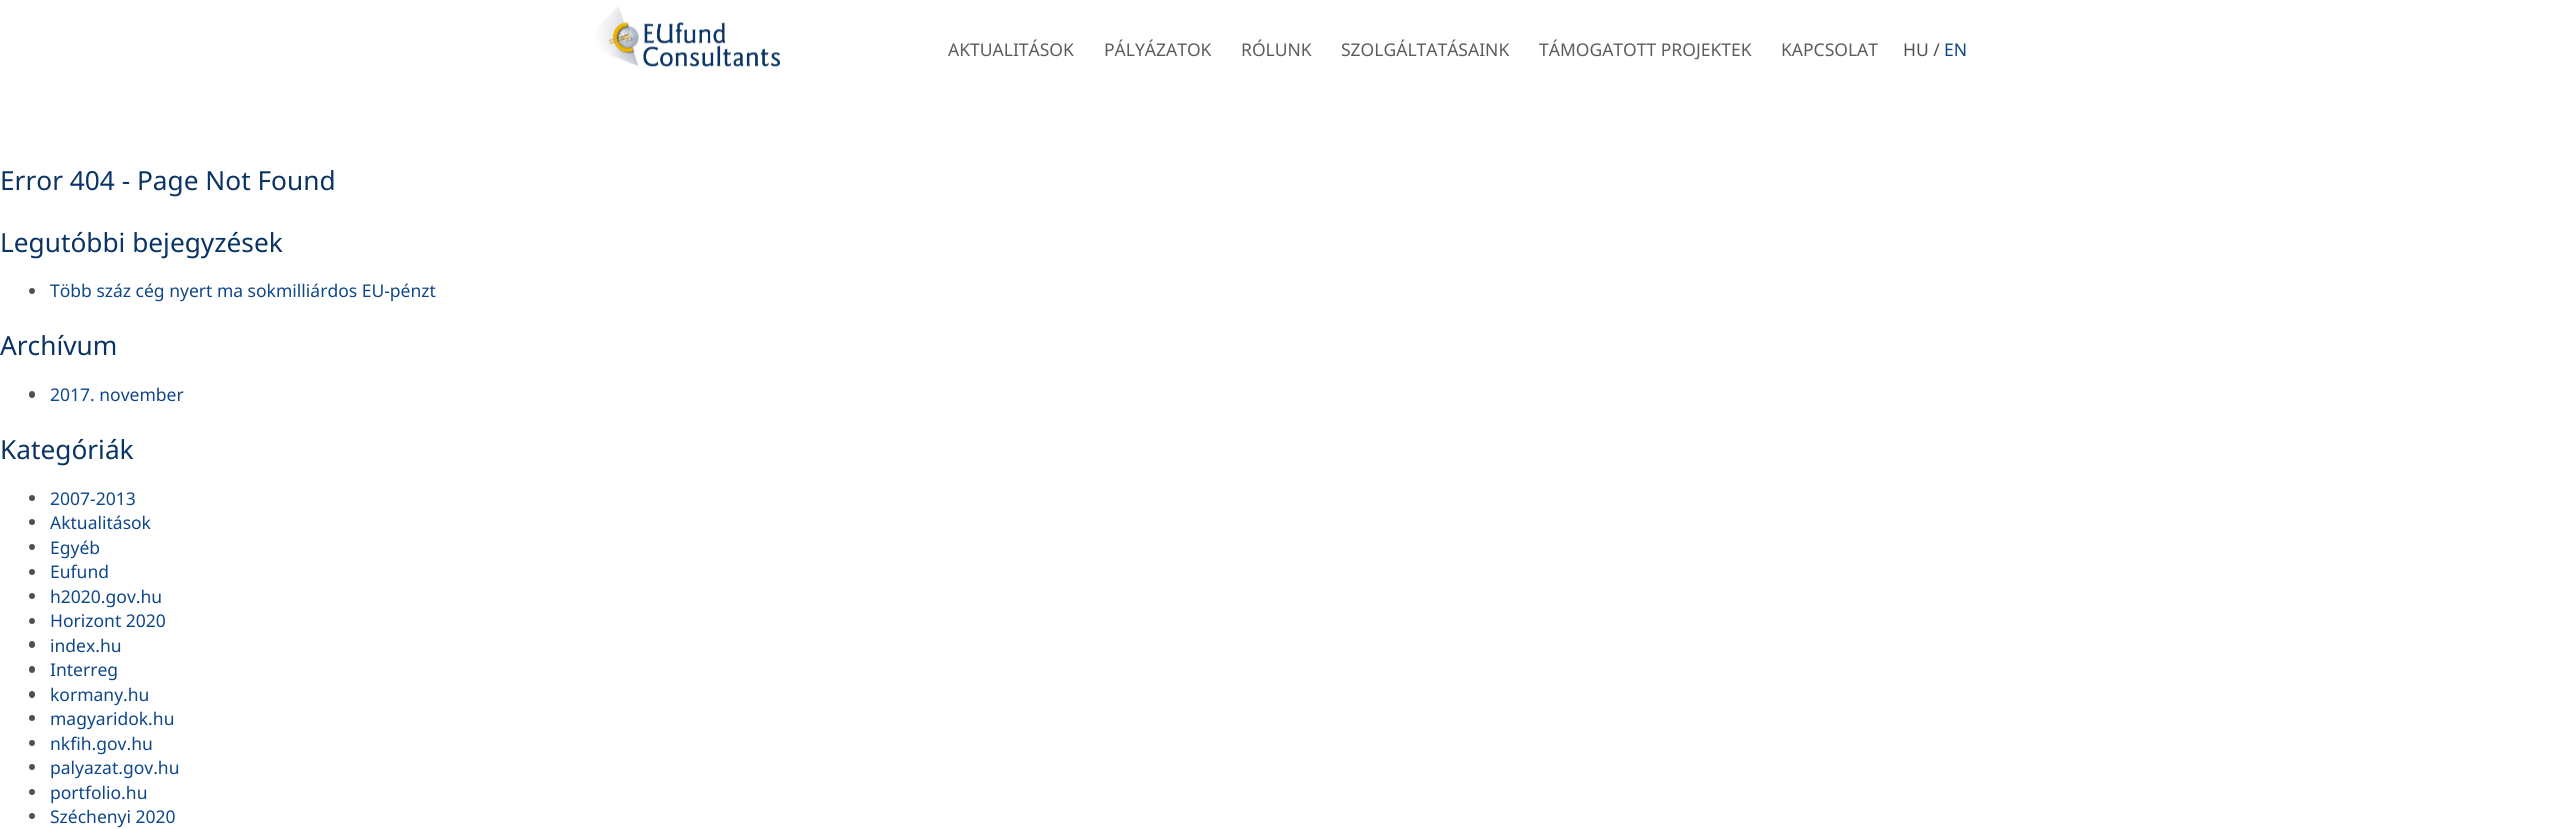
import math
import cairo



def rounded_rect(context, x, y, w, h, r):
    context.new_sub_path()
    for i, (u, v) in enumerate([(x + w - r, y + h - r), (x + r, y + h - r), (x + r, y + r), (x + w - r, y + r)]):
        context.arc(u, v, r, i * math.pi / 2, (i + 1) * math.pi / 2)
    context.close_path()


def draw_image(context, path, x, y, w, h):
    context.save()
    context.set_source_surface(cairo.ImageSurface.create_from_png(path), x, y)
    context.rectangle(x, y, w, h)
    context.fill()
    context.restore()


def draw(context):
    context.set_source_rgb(1, 1, 1)
    context.paint()
    draw_image(context, "images/1.png", 596, 6, 184, 61)
    context.set_source_rgb(80 / 255, 80 / 255, 80 / 255)
    context.arc(32, 291, 3, 0, 2 * math.pi)
    context.fill()
    rounded_rect(context, 29, 391, 6, 7, 3)
    context.fill()
    context.arc(32, 498, 3, 0, 2 * math.pi)
    context.fill()
    context.arc(32, 522, 3, 0, 2 * math.pi)
    context.fill()
    context.arc(32, 547, 3, 0, 2 * math.pi)
    context.fill()
    context.arc(32, 572, 3, 0, 2 * math.pi)
    context.fill()
    context.arc(32, 596, 3, 0, 2 * math.pi)
    context.fill()
    context.arc(32, 621, 3, 0, 2 * math.pi)
    context.fill()
    rounded_rect(context, 29, 641, 6, 7, 3)
    context.fill()
    rounded_rect(context, 29, 666, 6, 7, 3)
    context.fill()
    rounded_rect(context, 29, 691, 6, 7, 3)
    context.fill()
    context.arc(32, 718, 3, 0, 2 * math.pi)
    context.fill()
    context.arc(32, 743, 3, 0, 2 * math.pi)
    context.fill()
    context.arc(32, 767, 3, 0, 2 * math.pi)
    context.fill()
    context.arc(32, 792, 3, 0, 2 * math.pi)
    context.fill()
    context.arc(32, 816, 3, 0, 2 * math.pi)
    context.fill()
    context.select_font_face("Noto Sans")
    context.set_font_size(17.5)
    context.set_source_rgb(92 / 255, 92 / 255, 92 / 255)
    context.move_to(948, 56)
    context.show_text("AKTUALITÁSOK")
    context.move_to(1104, 56)
    context.show_text("PÁLYÁZATOK")
    context.move_to(1241, 56)
    context.show_text("RÓLUNK")
    context.move_to(1341, 56)
    context.show_text("SZOLGÁLTATÁSAINK")
    context.move_to(1539, 56)
    context.show_text("TÁMOGATOTT PROJEKTEK")
    context.move_to(1781, 56)
    context.show_text("KAPCSOLAT")
    context.set_source_rgb(80 / 255, 80 / 255, 80 / 255)
    context.move_to(1903, 56)
    context.show_text("HU /")
    context.set_source_rgb(14 / 255, 71 / 255, 138 / 255)
    context.move_to(1944, 56)
    context.show_text("EN")
    context.set_font_size(26.25)
    context.set_source_rgb(10 / 255, 52 / 255, 101 / 255)
    context.move_to(0, 190)
    context.show_text("Error 404 - Page Not Found")
    context.move_to(0, 252)
    context.show_text("Legutóbbi bejegyzések")
    context.set_font_size(17.5)
    context.set_source_rgb(14 / 255, 71 / 255, 138 / 255)
    context.move_to(50, 297)
    context.show_text("Több száz cég nyert ma sokmilliárdos EU-pénzt")
    context.set_font_size(26.25)
    context.set_source_rgb(10 / 255, 52 / 255, 101 / 255)
    context.move_to(0, 355)
    context.show_text("Archívum")
    context.set_font_size(17.5)
    context.set_source_rgb(14 / 255, 71 / 255, 138 / 255)
    context.move_to(50, 401)
    context.show_text("2017. november")
    context.set_font_size(26.25)
    context.set_source_rgb(10 / 255, 52 / 255, 101 / 255)
    context.move_to(0, 459)
    context.show_text("Kategóriák")
    context.set_font_size(17.5)
    context.set_source_rgb(14 / 255, 71 / 255, 138 / 255)
    context.move_to(50, 505)
    context.show_text("2007-2013")
    context.move_to(50, 529)
    context.show_text("Aktualitások")
    context.move_to(50, 554)
    context.show_text("Egyéb")
    context.move_to(50, 578)
    context.show_text("Eufund")
    context.move_to(50, 603)
    context.show_text("h2020.gov.hu")
    context.move_to(50, 627)
    context.show_text("Horizont 2020")
    context.move_to(50, 652)
    context.show_text("index.hu")
    context.move_to(50, 676)
    context.show_text("Interreg")
    context.move_to(50, 701)
    context.show_text("kormany.hu")
    context.move_to(50, 725)
    context.show_text("magyaridok.hu")
    context.move_to(50, 750)
    context.show_text("nkfih.gov.hu")
    context.move_to(50, 774)
    context.show_text("palyazat.gov.hu")
    context.move_to(50, 799)
    context.show_text("portfolio.hu")
    context.move_to(50, 823)
    context.show_text("Széchenyi 2020")


surface = cairo.ImageSurface(cairo.Format.RGB24, 2560, 829)
context = cairo.Context(surface)
options = cairo.FontOptions()
options.set_hint_metrics(cairo.HintMetrics.OFF)
options.set_hint_style(cairo.HintStyle.NONE)
context.set_font_options(options)
context.set_miter_limit(4)
draw(context)
surface.write_to_png("out.png")
